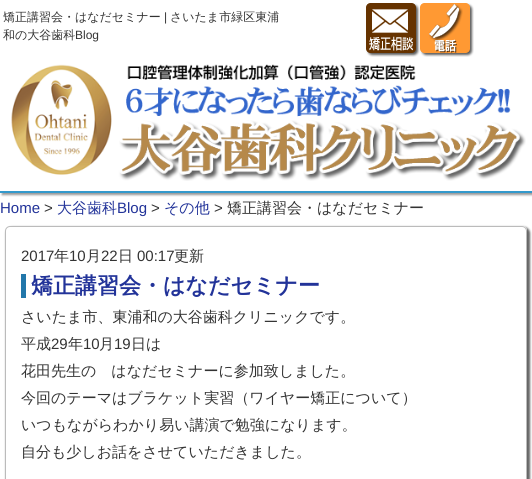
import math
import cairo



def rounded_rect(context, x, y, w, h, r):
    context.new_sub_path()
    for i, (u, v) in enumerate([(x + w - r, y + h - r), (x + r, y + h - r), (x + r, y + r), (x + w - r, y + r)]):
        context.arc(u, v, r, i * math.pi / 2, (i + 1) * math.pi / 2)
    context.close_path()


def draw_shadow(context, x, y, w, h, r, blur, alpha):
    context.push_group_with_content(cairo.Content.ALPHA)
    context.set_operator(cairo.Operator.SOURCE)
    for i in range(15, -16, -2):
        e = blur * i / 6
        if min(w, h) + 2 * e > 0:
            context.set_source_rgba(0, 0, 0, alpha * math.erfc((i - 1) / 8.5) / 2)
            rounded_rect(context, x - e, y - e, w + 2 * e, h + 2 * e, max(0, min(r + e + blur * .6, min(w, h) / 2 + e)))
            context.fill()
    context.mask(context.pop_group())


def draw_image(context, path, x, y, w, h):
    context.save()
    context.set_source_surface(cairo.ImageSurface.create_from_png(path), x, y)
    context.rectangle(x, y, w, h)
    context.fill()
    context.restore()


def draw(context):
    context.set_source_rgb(1, 1, 1)
    context.paint()
    context.save()
    context.rectangle(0, 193, 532, 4)
    context.clip()
    context.set_source_rgb(153 / 255, 153 / 255, 153 / 255)
    draw_shadow(context, 2, 2, 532, 193, 0, 1, 1)
    context.restore()
    context.set_source_rgb(51 / 255, 153 / 255, 204 / 255)
    context.rectangle(0, 191, 532, 2)
    context.fill()
    draw_image(context, "images/1.png", 11, 64, 515, 117)
    draw_image(context, "images/2.png", 366, 3, 54, 54)
    draw_image(context, "images/3.png", 420, 3, 54, 54)
    context.save()
    context.set_fill_rule(cairo.FillRule.EVEN_ODD)
    context.new_path()
    context.move_to(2, 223)
    context.line_to(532, 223)
    context.line_to(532, 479)
    context.line_to(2, 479)
    context.close_path()
    context.move_to(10, 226)
    context.line_to(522, 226)
    context.curve_to(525, 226, 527, 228, 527, 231)
    context.line_to(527, 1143)
    context.curve_to(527, 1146, 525, 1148, 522, 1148)
    context.line_to(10, 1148)
    context.curve_to(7, 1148, 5, 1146, 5, 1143)
    context.line_to(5, 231)
    context.curve_to(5, 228, 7, 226, 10, 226)
    context.close_path()
    context.clip()
    context.set_source_rgb(102 / 255, 102 / 255, 102 / 255)
    draw_shadow(context, 6, 227, 524, 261, 6, 1, 1)
    context.restore()
    rounded_rect(context, 5.5, 226.5, 521, 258, 4.5)
    context.set_source_rgb(187 / 255, 187 / 255, 187 / 255)
    context.set_line_width(1)
    context.stroke()
    context.set_source_rgb(34 / 255, 119 / 255, 170 / 255)
    context.rectangle(21, 274, 5, 24)
    context.fill()
    context.select_font_face("WenQuanYi Zen Hei Medium")
    context.set_font_size(12)
    context.set_source_rgb(51 / 255, 51 / 255, 51 / 255)
    context.move_to(3, 21)
    context.show_text("矯正講習会・はなだセミナー")
    context.select_font_face("Liberation Sans")
    context.move_to(164, 21)
    context.show_text("|")
    context.select_font_face("WenQuanYi Zen Hei Medium")
    context.move_to(170, 21)
    context.show_text("さいたま市緑区東浦")
    context.move_to(3, 39)
    context.show_text("和の大谷歯科")
    context.select_font_face("Liberation Sans")
    context.move_to(75, 39)
    context.show_text("Blog")
    context.set_font_size(15)
    context.set_source_rgb(34 / 255, 51 / 255, 153 / 255)
    context.move_to(0, 213)
    context.show_text("Home")
    context.set_source_rgb(51 / 255, 51 / 255, 51 / 255)
    context.move_to(44, 213)
    context.show_text(">")
    context.select_font_face("WenQuanYi Zen Hei Medium")
    context.set_source_rgb(34 / 255, 51 / 255, 153 / 255)
    context.move_to(57, 213)
    context.show_text("大谷歯科")
    context.select_font_face("Liberation Sans")
    context.move_to(117, 213)
    context.show_text("Blog")
    context.set_source_rgb(51 / 255, 51 / 255, 51 / 255)
    context.move_to(151, 213)
    context.show_text(">")
    context.select_font_face("WenQuanYi Zen Hei Medium")
    context.set_source_rgb(34 / 255, 51 / 255, 153 / 255)
    context.move_to(164, 213)
    context.show_text("その他")
    context.select_font_face("Liberation Sans")
    context.set_source_rgb(51 / 255, 51 / 255, 51 / 255)
    context.move_to(214, 213)
    context.show_text(">")
    context.select_font_face("WenQuanYi Zen Hei Medium")
    context.move_to(227, 213)
    context.show_text("矯正講習会・はなだセミナー")
    context.select_font_face("Liberation Sans")
    context.move_to(21, 261)
    context.show_text("2017")
    context.select_font_face("WenQuanYi Zen Hei Medium")
    context.move_to(54, 261)
    context.show_text("年")
    context.select_font_face("Liberation Sans")
    context.move_to(69, 261)
    context.show_text("10")
    context.select_font_face("WenQuanYi Zen Hei Medium")
    context.move_to(86, 261)
    context.show_text("月")
    context.select_font_face("Liberation Sans")
    context.move_to(101, 261)
    context.show_text("22")
    context.select_font_face("WenQuanYi Zen Hei Medium")
    context.move_to(118, 261)
    context.show_text("日")
    context.select_font_face("Liberation Sans")
    context.move_to(137, 261)
    context.show_text("00:17")
    context.select_font_face("WenQuanYi Zen Hei Medium")
    context.move_to(174, 261)
    context.show_text("更新")
    context.select_font_face("WenQuanYi Zen Hei", cairo.FontSlant.NORMAL, cairo.FontWeight.BOLD)
    context.set_font_size(22)
    context.set_source_rgb(34 / 255, 51 / 255, 153 / 255)
    context.move_to(31, 293)
    context.show_text("矯正講習会・はなだセミナー")
    context.select_font_face("WenQuanYi Zen Hei Medium")
    context.set_font_size(15)
    context.set_source_rgb(51 / 255, 51 / 255, 51 / 255)
    context.move_to(21, 322)
    context.show_text("さいたま市、東浦和の大谷歯科クリニックです。")
    context.move_to(21, 349)
    context.show_text("平成")
    context.select_font_face("Liberation Sans")
    context.move_to(51, 349)
    context.show_text("29")
    context.select_font_face("WenQuanYi Zen Hei Medium")
    context.move_to(68, 349)
    context.show_text("年")
    context.select_font_face("Liberation Sans")
    context.move_to(83, 349)
    context.show_text("10")
    context.select_font_face("WenQuanYi Zen Hei Medium")
    context.move_to(99, 349)
    context.show_text("月")
    context.select_font_face("Liberation Sans")
    context.move_to(114, 349)
    context.show_text("19")
    context.select_font_face("WenQuanYi Zen Hei Medium")
    context.move_to(131, 349)
    context.show_text("日は")
    context.move_to(21, 376)
    context.show_text("花田先生の　はなだセミナーに参加致しました。")
    context.move_to(21, 403)
    context.show_text("今回のテーマはブラケット実習（ワイヤー矯正について）")
    context.move_to(21, 430)
    context.show_text("いつもながらわかり易い講演で勉強になります。")
    context.move_to(21, 457)
    context.show_text("自分も少しお話をさせていただきました。")


surface = cairo.ImageSurface(cairo.Format.RGB24, 532, 479)
context = cairo.Context(surface)
options = cairo.FontOptions()
options.set_hint_metrics(cairo.HintMetrics.OFF)
options.set_hint_style(cairo.HintStyle.NONE)
context.set_font_options(options)
context.set_miter_limit(4)
draw(context)
surface.write_to_png("out.png")
